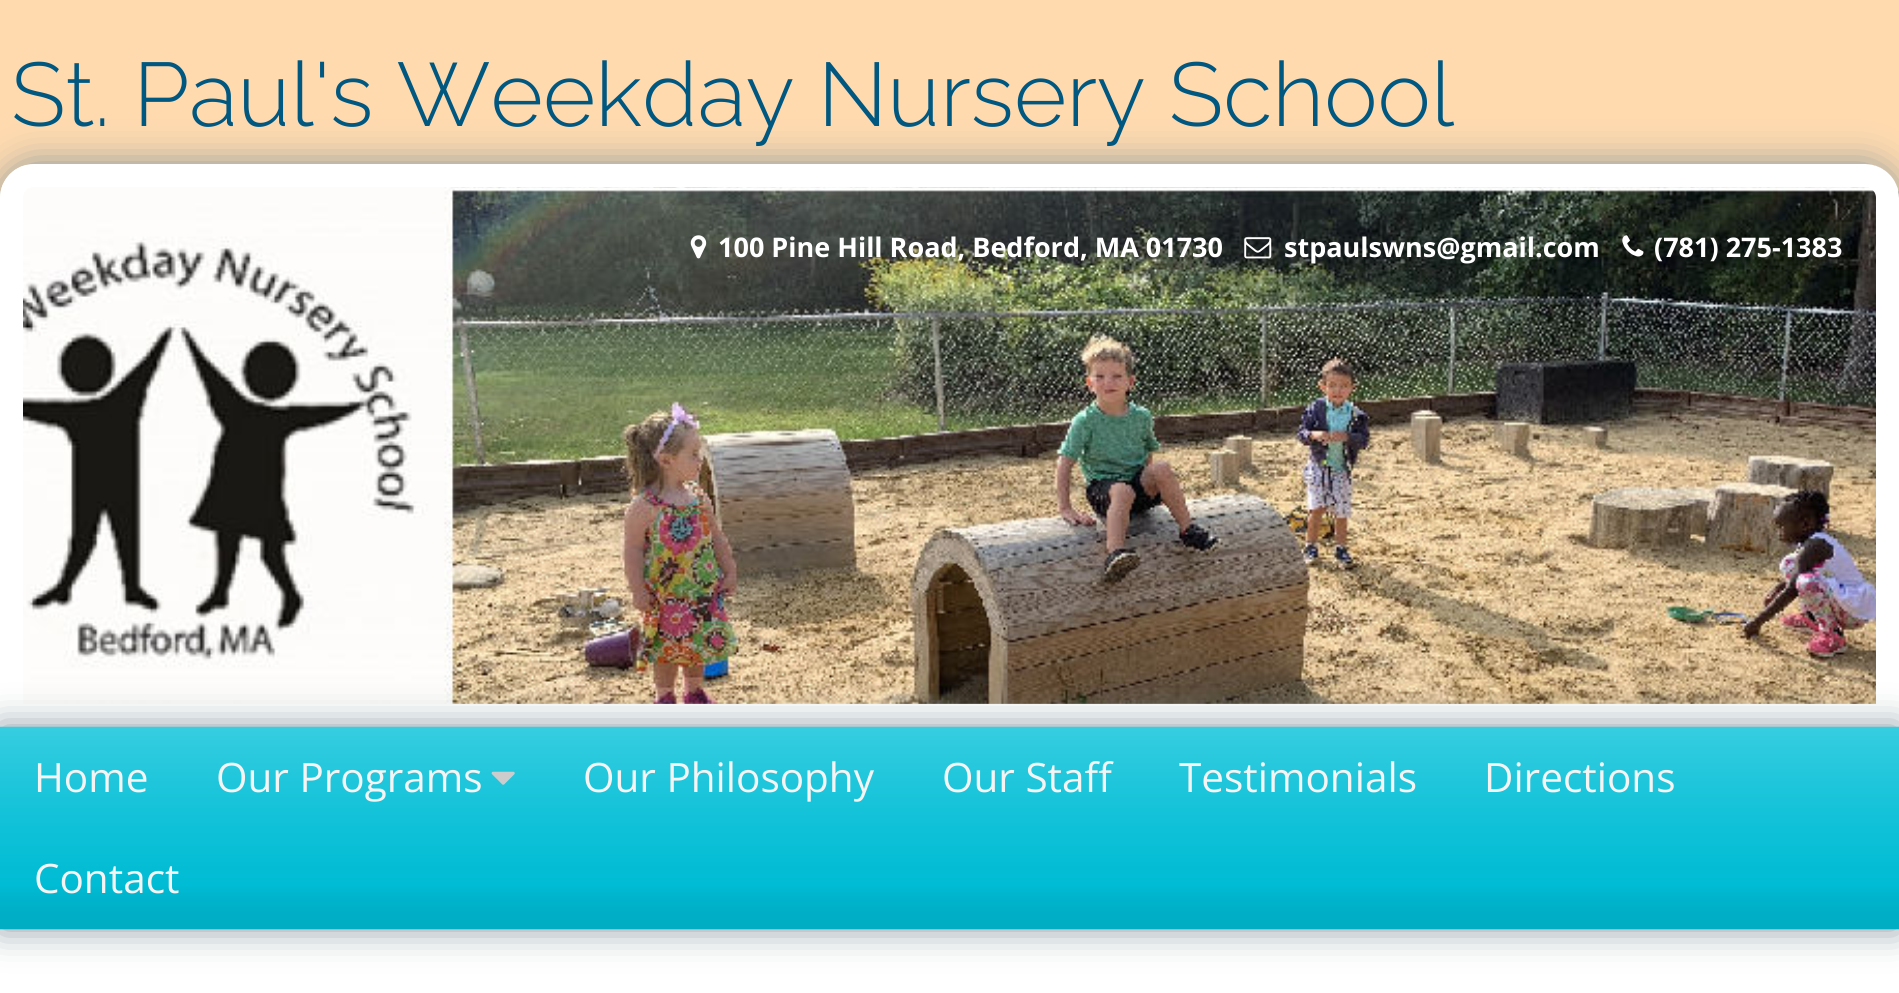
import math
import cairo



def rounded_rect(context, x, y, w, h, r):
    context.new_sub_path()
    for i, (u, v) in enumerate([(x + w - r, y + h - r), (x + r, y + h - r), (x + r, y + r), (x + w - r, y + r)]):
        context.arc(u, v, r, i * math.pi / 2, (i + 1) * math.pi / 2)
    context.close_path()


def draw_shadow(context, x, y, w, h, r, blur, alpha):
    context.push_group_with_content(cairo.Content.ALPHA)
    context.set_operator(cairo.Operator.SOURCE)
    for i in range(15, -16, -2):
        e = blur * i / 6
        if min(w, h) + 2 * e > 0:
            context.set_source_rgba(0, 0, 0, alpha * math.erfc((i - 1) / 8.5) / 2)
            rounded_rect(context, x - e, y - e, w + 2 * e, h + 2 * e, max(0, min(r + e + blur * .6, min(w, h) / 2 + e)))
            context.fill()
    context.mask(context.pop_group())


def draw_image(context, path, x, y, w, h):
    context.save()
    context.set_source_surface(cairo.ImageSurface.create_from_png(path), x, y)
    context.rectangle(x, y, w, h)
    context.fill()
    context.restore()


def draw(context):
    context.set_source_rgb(1, 218 / 255, 175 / 255)
    context.paint()
    context.set_source_rgb(133 / 255, 150 / 255, 159 / 255)
    draw_shadow(context, 0, 164, 1899, 563, 34, 18, 1)
    draw_image(context, "images/1.png", 0, 164, 1899, 540)
    context.new_path()
    context.move_to(34, 175.5)
    context.line_to(1865, 175.5)
    context.curve_to(1877.5, 175.5, 1887.5, 185.5, 1887.5, 198)
    context.line_to(1887.5, 715.5)
    context.line_to(11.5, 715.5)
    context.line_to(11.5, 198)
    context.curve_to(11.5, 185.5, 21.5, 175.5, 34, 175.5)
    context.close_path()
    context.set_source_rgb(1, 1, 1)
    context.set_line_width(23)
    context.stroke()
    draw_image(context, "images/2.png", 690, 235, 17, 24)
    draw_image(context, "images/3.png", 1244, 237, 28, 22)
    draw_image(context, "images/4.png", 1622, 235, 22, 22)
    context.rectangle(0, 929, 1899, 64)
    context.fill()
    context.set_source_rgb(133 / 255, 150 / 255, 159 / 255)
    draw_shadow(context, 0, 727, 1899, 202, 0, 18, 1)
    draw_image(context, "images/5.png", 0, 726, 1899, 204)
    draw_image(context, "images/6.png", 491, 771, 24, 14)
    context.select_font_face("Raleway Thin")
    context.set_font_size(90)
    context.set_source_rgb(0, 87 / 255, 128 / 255)
    context.move_to(11, 126)
    context.show_text("St. Paul's Weekday Nursery School")
    context.select_font_face("Open Sans", cairo.FontSlant.NORMAL, cairo.FontWeight.BOLD)
    context.set_font_size(27)
    context.set_source_rgb(1, 1, 1)
    context.move_to(718, 257)
    context.show_text("100 Pine Hill Road, Bedford, MA 01730")
    context.move_to(1284, 257)
    context.show_text("stpaulswns@gmail.com")
    context.move_to(1654, 257)
    context.show_text("(781) 275-1383")
    context.select_font_face("Open Sans")
    context.set_font_size(40.5)
    context.set_source_rgb(245 / 255, 244 / 255, 243 / 255)
    context.move_to(34, 792)
    context.show_text("Home")
    context.move_to(216, 792)
    context.show_text("Our Programs")
    context.move_to(583, 792)
    context.show_text("Our Philosophy")
    context.move_to(942, 792)
    context.show_text("Our Staff")
    context.move_to(1179, 792)
    context.show_text("Testimonials")
    context.move_to(1484, 792)
    context.show_text("Directions")
    context.move_to(34, 893)
    context.show_text("Contact")


surface = cairo.ImageSurface(cairo.Format.RGB24, 1899, 993)
context = cairo.Context(surface)
options = cairo.FontOptions()
options.set_hint_metrics(cairo.HintMetrics.OFF)
options.set_hint_style(cairo.HintStyle.NONE)
context.set_font_options(options)
context.set_miter_limit(4)
draw(context)
surface.write_to_png("out.png")
